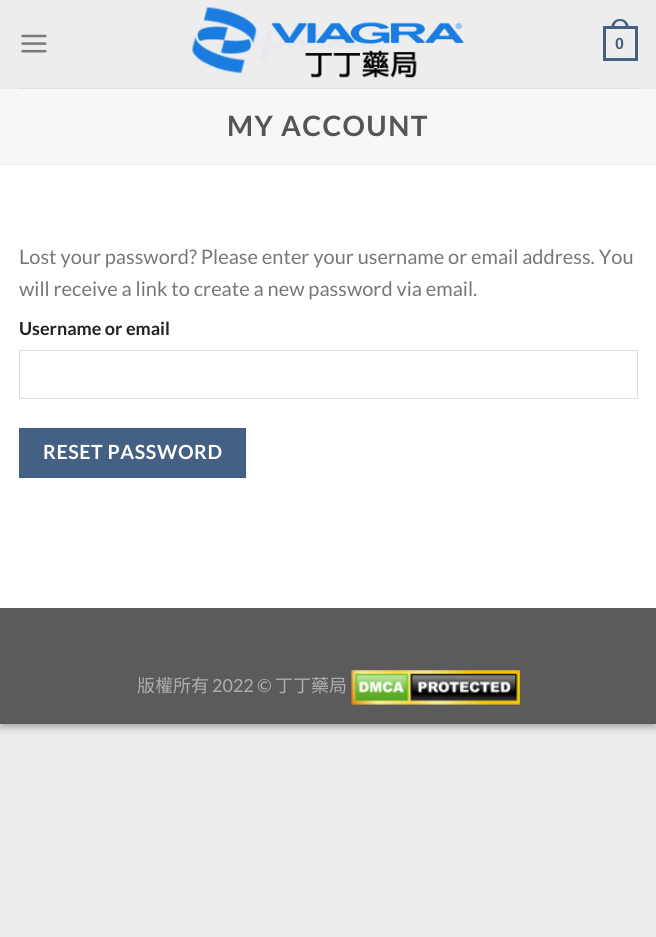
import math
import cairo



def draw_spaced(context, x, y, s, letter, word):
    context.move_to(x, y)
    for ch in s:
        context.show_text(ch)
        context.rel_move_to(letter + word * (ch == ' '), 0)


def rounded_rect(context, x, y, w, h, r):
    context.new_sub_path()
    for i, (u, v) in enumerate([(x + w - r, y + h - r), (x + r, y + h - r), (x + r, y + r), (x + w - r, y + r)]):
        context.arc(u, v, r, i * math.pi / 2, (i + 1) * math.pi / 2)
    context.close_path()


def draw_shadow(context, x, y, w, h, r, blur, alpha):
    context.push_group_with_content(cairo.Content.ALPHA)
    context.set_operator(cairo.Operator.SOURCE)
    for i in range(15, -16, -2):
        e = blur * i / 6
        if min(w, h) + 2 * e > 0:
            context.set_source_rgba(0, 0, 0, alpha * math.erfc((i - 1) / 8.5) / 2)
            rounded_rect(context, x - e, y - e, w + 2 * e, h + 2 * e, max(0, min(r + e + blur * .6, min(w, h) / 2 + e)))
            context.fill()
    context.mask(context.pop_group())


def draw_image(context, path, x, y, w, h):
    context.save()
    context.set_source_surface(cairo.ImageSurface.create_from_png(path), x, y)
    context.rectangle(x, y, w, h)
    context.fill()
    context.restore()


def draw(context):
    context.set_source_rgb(237 / 255, 236 / 255, 236 / 255)
    context.paint()
    context.set_source_rgb(0, 0, 0)
    draw_shadow(context, 0, 4, 656, 724, 0, 4, 0.23)
    draw_shadow(context, 5, 9, 646, 714, 0, 4, 0.16)
    context.set_source_rgb(1, 1, 1)
    context.rectangle(0, 165, 656, 443)
    context.fill()
    context.set_source_rgb(237 / 255, 237 / 255, 237 / 255)
    context.rectangle(0, 0, 656, 88)
    context.fill()
    draw_image(context, "images/1.png", 21, 34, 26, 19)
    draw_image(context, "images/2.png", 192, 7, 272, 71)
    context.rectangle(604.5, 27.5, 32, 32)
    context.set_source_rgb(68 / 255, 96 / 255, 132 / 255)
    context.set_line_width(3)
    context.stroke()
    context.set_fill_rule(cairo.FillRule.EVEN_ODD)
    context.new_path()
    context.move_to(620, 19)
    context.curve_to(626, 19, 629, 23.5, 629, 29)
    context.line_to(611, 29)
    context.curve_to(611, 23.5, 614, 19, 620, 19)
    context.close_path()
    context.move_to(620, 21)
    context.curve_to(624.5, 21, 626, 25, 626, 29)
    context.line_to(614, 29)
    context.curve_to(614, 25, 615.5, 21, 620, 21)
    context.close_path()
    context.fill()
    context.set_source_rgb(236 / 255, 236 / 255, 236 / 255)
    context.rectangle(0, 88, 656, 1)
    context.fill()
    context.set_source_rgb(224 / 255, 224 / 255, 224 / 255)
    context.rectangle(19, 88, 619, 1)
    context.fill()
    context.set_source_rgb(247 / 255, 247 / 255, 247 / 255)
    context.rectangle(0, 89, 656, 75)
    context.fill()
    context.set_source_rgb(236 / 255, 236 / 255, 236 / 255)
    context.rectangle(0, 164, 656, 1)
    context.fill()
    context.rectangle(19.5, 350.5, 618, 48)
    context.set_source_rgb(221 / 255, 221 / 255, 221 / 255)
    context.set_line_width(1)
    context.stroke()
    context.set_source_rgb(68 / 255, 96 / 255, 132 / 255)
    context.rectangle(19.5, 428.5, 226, 49)
    context.fill_preserve()
    context.set_source_rgb(65 / 255, 91 / 255, 125 / 255)
    context.stroke()
    context.set_source_rgb(91 / 255, 91 / 255, 91 / 255)
    context.rectangle(0, 608, 656, 116)
    context.fill()
    draw_image(context, "images/3.png", 351, 670, 169, 35)
    context.select_font_face("Liberation Sans", cairo.FontSlant.NORMAL, cairo.FontWeight.BOLD)
    context.set_font_size(16)
    context.set_source_rgb(68 / 255, 96 / 255, 132 / 255)
    context.move_to(615, 49)
    context.show_text("0")
    context.select_font_face("Lato", cairo.FontSlant.NORMAL, cairo.FontWeight.BOLD)
    context.set_font_size(28)
    context.set_source_rgb(85 / 255, 85 / 255, 85 / 255)
    draw_spaced(context, 227, 136, "MY ACCOUNT", 1.4, 0)
    context.select_font_face("Lato")
    context.set_font_size(20)
    context.set_source_rgb(119 / 255, 119 / 255, 119 / 255)
    context.move_to(19, 264)
    context.show_text("Lost your password? Please enter your username or email address. You")
    context.move_to(19, 296)
    context.show_text("will receive a link to create a new password via email.")
    context.select_font_face("Lato", cairo.FontSlant.NORMAL, cairo.FontWeight.BOLD)
    context.set_font_size(18)
    context.set_source_rgb(34 / 255, 34 / 255, 34 / 255)
    context.move_to(19, 335)
    context.show_text("Username or email")
    context.set_font_size(19.5)
    context.set_source_rgb(1, 1, 1)
    draw_spaced(context, 43, 459, "RESET PASSWORD", 0.6, 0)
    context.select_font_face("Noto Sans CJK TC")
    context.set_font_size(18)
    context.set_source_rgb(173 / 255, 173 / 255, 173 / 255)
    context.move_to(137, 692)
    context.show_text("版權所有")
    context.select_font_face("Lato")
    context.move_to(212, 692)
    context.show_text("2022 ©")
    context.select_font_face("Noto Sans CJK TC")
    context.move_to(275, 692)
    context.show_text("丁丁藥局")


surface = cairo.ImageSurface(cairo.Format.RGB24, 656, 937)
context = cairo.Context(surface)
options = cairo.FontOptions()
options.set_hint_metrics(cairo.HintMetrics.OFF)
options.set_hint_style(cairo.HintStyle.NONE)
context.set_font_options(options)
context.set_miter_limit(4)
draw(context)
surface.write_to_png("out.png")
